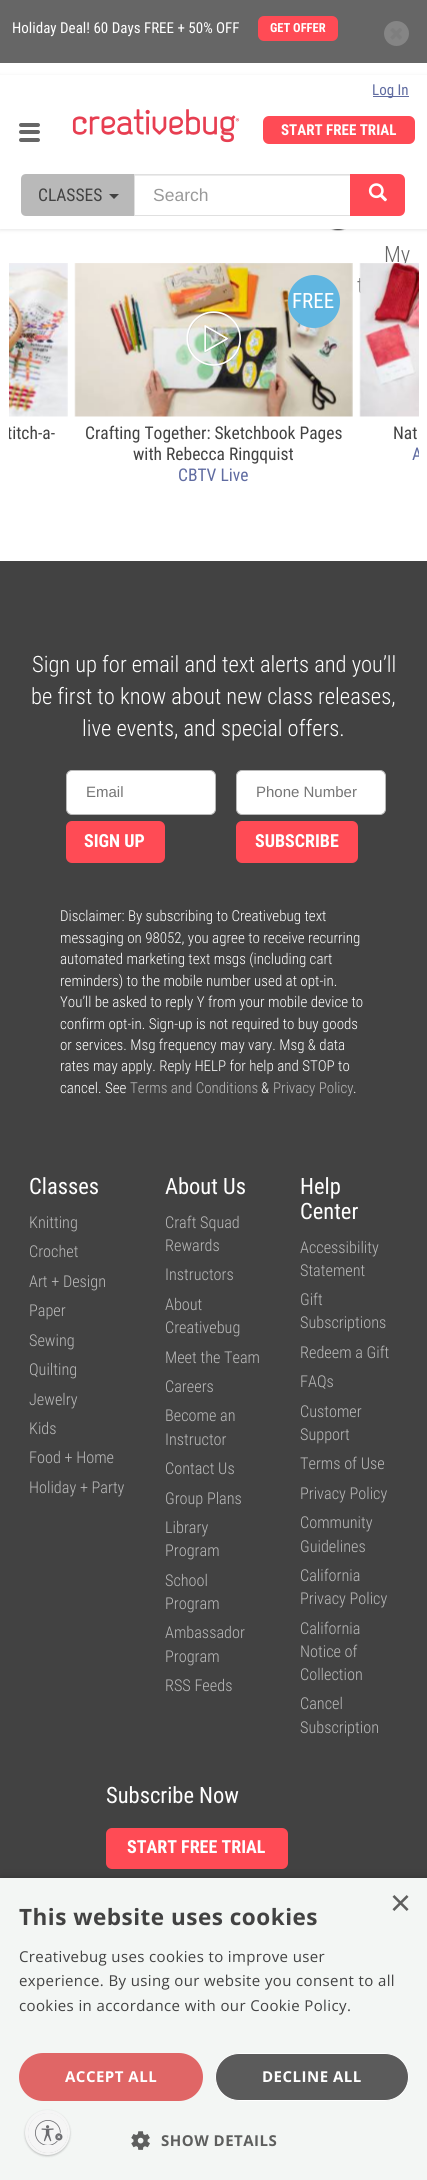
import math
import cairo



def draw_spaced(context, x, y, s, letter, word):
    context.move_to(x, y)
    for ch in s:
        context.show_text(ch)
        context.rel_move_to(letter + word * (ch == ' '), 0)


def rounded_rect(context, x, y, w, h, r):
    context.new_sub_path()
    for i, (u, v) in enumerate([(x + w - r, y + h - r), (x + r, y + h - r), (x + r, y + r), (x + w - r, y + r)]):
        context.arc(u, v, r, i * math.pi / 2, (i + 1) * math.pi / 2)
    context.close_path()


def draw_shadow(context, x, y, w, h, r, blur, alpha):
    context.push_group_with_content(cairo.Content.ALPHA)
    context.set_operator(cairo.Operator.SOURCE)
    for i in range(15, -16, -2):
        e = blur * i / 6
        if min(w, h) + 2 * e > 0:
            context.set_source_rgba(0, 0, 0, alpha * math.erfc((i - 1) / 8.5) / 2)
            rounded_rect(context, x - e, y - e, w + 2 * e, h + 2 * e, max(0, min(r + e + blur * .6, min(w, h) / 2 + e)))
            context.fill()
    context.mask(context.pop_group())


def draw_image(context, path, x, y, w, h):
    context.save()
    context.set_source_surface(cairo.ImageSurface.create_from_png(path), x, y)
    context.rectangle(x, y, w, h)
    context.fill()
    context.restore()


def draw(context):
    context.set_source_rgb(1, 1, 1)
    context.paint()
    context.set_source_rgb(102 / 255, 102 / 255, 102 / 255)
    context.rectangle(0, 0, 427, 63)
    context.fill()
    context.set_source_rgb(1, 75 / 255, 85 / 255)
    rounded_rect(context, 258, 16, 80, 25, 6)
    context.fill()
    context.set_source_rgb(133 / 255, 133 / 255, 133 / 255)
    context.arc(396.5, 33.5, 12.5, 0, 2 * math.pi)
    context.fill()
    draw_image(context, "images/1.png", 390, 28, 12, 12)
    draw_image(context, "images/4.png", 330, 229, 16, 2)
    context.set_source_rgb(0, 0, 0)
    draw_shadow(context, 0, 76, 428, 154, 0, 2, 0.1)
    context.set_source_rgb(1, 1, 1)
    context.rectangle(0, 75, 427, 154)
    context.fill()
    context.set_source_rgb(102 / 255, 102 / 255, 102 / 255)
    rounded_rect(context, 19, 123, 21, 4, 2)
    context.fill()
    rounded_rect(context, 19, 130, 21, 4, 2)
    context.fill()
    rounded_rect(context, 19, 138, 21, 4, 2)
    context.fill()
    draw_image(context, "images/2.png", 72, 109, 168, 34)
    context.set_source_rgb(96 / 255, 108 / 255, 161 / 255)
    context.rectangle(373, 96, 36, 1)
    context.fill()
    context.set_source_rgb(1, 75 / 255, 85 / 255)
    rounded_rect(context, 263, 116, 152, 28, 6)
    context.fill()
    context.set_source_rgb(185 / 255, 185 / 255, 185 / 255)
    context.new_path()
    context.move_to(26, 174)
    context.line_to(135, 174)
    context.line_to(135, 216)
    context.line_to(26, 216)
    context.curve_to(23, 216, 21, 214, 21, 211)
    context.line_to(21, 179)
    context.curve_to(21, 176, 23, 174, 26, 174)
    context.close_path()
    context.fill()
    context.set_source_rgb(66 / 255, 66 / 255, 66 / 255)
    context.new_path()
    context.move_to(109, 194)
    context.line_to(119, 194)
    context.line_to(114, 199)
    context.close_path()
    context.fill()
    context.set_source_rgb(236 / 255, 236 / 255, 236 / 255)
    context.rectangle(135, 175, 215, 1)
    context.fill()
    context.rectangle(134.5, 174.5, 216, 41)
    context.set_source_rgb(224 / 255, 224 / 255, 224 / 255)
    context.set_line_width(1)
    context.stroke()
    context.set_source_rgb(1, 75 / 255, 85 / 255)
    context.new_path()
    context.move_to(350, 174)
    context.line_to(399, 174)
    context.curve_to(402.5, 174, 405, 176.5, 405, 180)
    context.line_to(405, 210)
    context.curve_to(405, 213.5, 402.5, 216, 399, 216)
    context.line_to(350, 216)
    context.close_path()
    context.fill()
    draw_image(context, "images/3.png", 368, 183, 19, 19)
    context.set_source_rgb(250 / 255, 250 / 255, 250 / 255)
    context.rectangle(9, 263, 59, 153)
    context.fill()
    draw_image(context, "images/5.png", 9, 263, 59, 154)
    context.rectangle(75, 263, 278, 153)
    context.fill()
    draw_image(context, "images/6.png", 74, 263, 279, 154)
    context.set_source_rgb(96 / 255, 182 / 255, 225 / 255)
    rounded_rect(context, 288, 275, 52, 53, 26)
    context.fill()
    draw_image(context, "images/7.png", 186, 311, 55, 56)
    context.set_source_rgb(66 / 255, 66 / 255, 66 / 255)
    context.rectangle(0, 561, 427, 1317)
    context.fill()
    context.set_source_rgb(1, 1, 1)
    rounded_rect(context, 66.5, 770.5, 149, 44, 5.5)
    context.fill_preserve()
    context.set_source_rgb(185 / 255, 185 / 255, 185 / 255)
    context.stroke()
    context.set_source_rgb(1, 75 / 255, 85 / 255)
    rounded_rect(context, 66, 821, 99, 42, 6)
    context.fill()
    context.set_source_rgb(1, 1, 1)
    rounded_rect(context, 236.5, 770.5, 149, 44, 5.5)
    context.fill_preserve()
    context.set_source_rgb(185 / 255, 185 / 255, 185 / 255)
    context.stroke()
    context.set_source_rgb(1, 75 / 255, 85 / 255)
    rounded_rect(context, 236, 821, 122, 42, 6)
    context.fill()
    rounded_rect(context, 106, 1828, 182, 41, 6)
    context.fill()
    context.set_source_rgb(0, 0, 0)
    draw_shadow(context, 1, 1880, 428, 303, 0, 5, 0.35)
    context.set_source_rgb(243 / 255, 246 / 255, 244 / 255)
    context.rectangle(0, 1878, 427, 302)
    context.fill()
    context.set_source_rgb(224 / 255, 102 / 255, 102 / 255)
    rounded_rect(context, 19, 2053, 184, 48, 24)
    context.fill()
    context.set_source_rgb(91 / 255, 91 / 255, 91 / 255)
    rounded_rect(context, 215.5, 2053.5, 193, 47, 23.5)
    context.fill_preserve()
    context.set_source_rgb(1, 1, 1)
    context.stroke()
    draw_image(context, "images/9.png", 131, 2131, 19, 19)
    context.set_source_rgb(0, 0, 0)
    draw_shadow(context, 25, 2111, 45, 45, 22.5, 1, 0.24)
    context.set_source_rgb(235 / 255, 235 / 255, 240 / 255)
    context.arc(47.5, 2132.5, 21, 0, 2 * math.pi)
    context.fill_preserve()
    context.set_source_rgb(245 / 255, 245 / 255, 245 / 255)
    context.set_line_width(3)
    context.stroke()
    context.save()
    rounded_rect(context, 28, 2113, 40, 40, 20)
    context.clip()
    context.set_source_rgb(0, 0, 0)
    draw_shadow(context, 28, 2114, 40, 40, 20, 1, 0.24)
    context.restore()
    context.arc(48, 2133, 20, 0, 2 * math.pi)
    context.fill()
    draw_image(context, "images/10.png", 35, 2120, 28, 25)
    context.select_font_face("Roboto Condensed")
    context.set_font_size(15)
    context.set_source_rgb(1, 1, 1)
    context.move_to(12, 33)
    context.show_text("Holiday Deal! 60 Days FREE + 50% OFF")
    context.select_font_face("Roboto Condensed", cairo.FontSlant.NORMAL, cairo.FontWeight.BOLD)
    context.set_font_size(12.5)
    context.move_to(270, 32)
    context.show_text("GET OFFER")
    context.select_font_face("Roboto Condensed")
    context.set_font_size(15)
    context.set_source_rgb(96 / 255, 108 / 255, 161 / 255)
    context.move_to(372, 95)
    context.show_text("Log In")
    context.select_font_face("Roboto Condensed", cairo.FontSlant.NORMAL, cairo.FontWeight.BOLD)
    context.set_source_rgb(1, 1, 1)
    context.move_to(281, 135)
    context.show_text("START FREE TRIAL")
    context.select_font_face("Roboto Condensed")
    context.set_font_size(17.5)
    context.set_source_rgb(66 / 255, 66 / 255, 66 / 255)
    context.move_to(38, 201)
    context.show_text("CLASSES")
    context.select_font_face("Liberation Sans")
    context.set_source_rgb(153 / 255, 153 / 255, 153 / 255)
    context.move_to(153, 201)
    context.show_text("Search")
    context.select_font_face("Roboto Condensed Light")
    context.set_font_size(22.5)
    context.set_source_rgb(102 / 255, 102 / 255, 102 / 255)
    context.move_to(384, 262)
    context.show_text("My")
    context.move_to(357, 293)
    context.show_text("t")
    context.save()
    context.rectangle(9, 263, 410, 223)
    context.clip()
    context.select_font_face("Roboto Condensed")
    context.set_font_size(17.5)
    context.set_source_rgb(66 / 255, 66 / 255, 66 / 255)
    context.move_to(7, 439)
    context.show_text("titch-a-")
    context.restore()
    context.select_font_face("Roboto Condensed")
    context.set_font_size(21)
    context.set_source_rgb(1, 1, 1)
    context.move_to(292, 308)
    context.show_text("FREE")
    context.set_font_size(17.5)
    context.set_source_rgb(66 / 255, 66 / 255, 66 / 255)
    context.move_to(85, 439)
    context.show_text("Crafting Together: Sketchbook Pages")
    context.move_to(133, 460)
    context.show_text("with Rebecca Ringquist")
    context.set_source_rgb(96 / 255, 108 / 255, 161 / 255)
    context.move_to(178, 481)
    context.show_text("CBTV Live")
    draw_image(context, "images/8.png", 359, 263, 60, 154)
    context.set_source_rgb(66 / 255, 66 / 255, 66 / 255)
    context.move_to(393, 439)
    context.show_text("Nat")
    context.save()
    context.rectangle(9, 263, 410, 223)
    context.clip()
    context.set_source_rgb(96 / 255, 108 / 255, 161 / 255)
    context.move_to(412, 460)
    context.show_text("A")
    context.restore()
    context.select_font_face("Roboto Condensed Light")
    context.set_font_size(22.5)
    context.set_source_rgb(1, 1, 1)
    context.move_to(32, 672)
    context.show_text("Sign up for email and text alerts and you’ll")
    context.move_to(31, 704)
    context.show_text("be first to know about new class releases,")
    context.move_to(82, 736)
    context.show_text("live events, and special offers.")
    context.select_font_face("Liberation Sans")
    context.set_font_size(15)
    context.set_source_rgb(117 / 255, 117 / 255, 117 / 255)
    context.move_to(86, 797)
    context.show_text("Email")
    context.select_font_face("Roboto Condensed", cairo.FontSlant.NORMAL, cairo.FontWeight.BOLD)
    context.set_font_size(18)
    context.set_source_rgb(1, 1, 1)
    context.move_to(84, 847)
    context.show_text("SIGN UP")
    context.select_font_face("Liberation Sans")
    context.set_font_size(15)
    context.set_source_rgb(117 / 255, 117 / 255, 117 / 255)
    context.move_to(256, 797)
    context.show_text("Phone Number")
    context.select_font_face("Roboto Condensed", cairo.FontSlant.NORMAL, cairo.FontWeight.BOLD)
    context.set_font_size(18)
    context.set_source_rgb(1, 1, 1)
    context.move_to(255, 847)
    context.show_text("SUBSCRIBE")
    context.select_font_face("Roboto Condensed Light")
    context.set_font_size(15)
    context.move_to(60, 921)
    context.show_text("Disclaimer: By subscribing to Creativebug text")
    context.move_to(60, 943)
    context.show_text("messaging on 98052, you agree to receive recurring")
    context.move_to(60, 964)
    context.show_text("automated marketing text msgs (including cart")
    context.move_to(60, 986)
    context.show_text("reminders) to the mobile number used at opt-in.")
    context.move_to(60, 1007)
    context.show_text("You’ll be asked to reply Y from your mobile device to")
    context.move_to(60, 1029)
    context.show_text("confirm opt-in. Sign-up is not required to buy goods")
    context.move_to(60, 1050)
    context.show_text("or services. Msg frequency may vary. Msg & data")
    context.move_to(60, 1071)
    context.show_text("rates may apply. Reply HELP for help and STOP to")
    context.move_to(60, 1093)
    context.show_text("cancel. See")
    context.set_source_rgb(185 / 255, 185 / 255, 185 / 255)
    context.move_to(130, 1093)
    context.show_text("Terms and Conditions")
    context.set_source_rgb(1, 1, 1)
    context.move_to(261, 1093)
    context.show_text("&")
    context.set_source_rgb(185 / 255, 185 / 255, 185 / 255)
    context.move_to(273, 1093)
    context.show_text("Privacy Policy")
    context.set_source_rgb(1, 1, 1)
    context.move_to(353, 1093)
    context.show_text(".")
    context.select_font_face("Roboto Condensed")
    context.set_font_size(22.5)
    context.move_to(29, 1194)
    context.show_text("Classes")
    context.select_font_face("Roboto Condensed Light")
    context.set_font_size(16.25)
    context.set_source_rgb(185 / 255, 185 / 255, 185 / 255)
    context.move_to(29, 1228)
    context.show_text("Knitting")
    context.move_to(29, 1257)
    context.show_text("Crochet")
    context.move_to(29, 1287)
    context.show_text("Art + Design")
    context.move_to(29, 1316)
    context.show_text("Paper")
    context.move_to(29, 1346)
    context.show_text("Sewing")
    context.move_to(29, 1375)
    context.show_text("Quilting")
    context.move_to(29, 1405)
    context.show_text("Jewelry")
    context.move_to(29, 1434)
    context.show_text("Kids")
    context.move_to(29, 1463)
    context.show_text("Food + Home")
    context.move_to(29, 1493)
    context.show_text("Holiday + Party")
    context.select_font_face("Roboto Condensed")
    context.set_font_size(22.5)
    context.set_source_rgb(1, 1, 1)
    context.move_to(165, 1194)
    context.show_text("About Us")
    context.select_font_face("Roboto Condensed Light")
    context.set_font_size(16.25)
    context.set_source_rgb(185 / 255, 185 / 255, 185 / 255)
    context.move_to(165, 1228)
    context.show_text("Craft Squad")
    context.move_to(165, 1251)
    context.show_text("Rewards")
    context.move_to(165, 1280)
    context.show_text("Instructors")
    context.move_to(165, 1310)
    context.show_text("About")
    context.move_to(165, 1333)
    context.show_text("Creativebug")
    context.move_to(165, 1363)
    context.show_text("Meet the Team")
    context.move_to(165, 1392)
    context.show_text("Careers")
    context.move_to(165, 1421)
    context.show_text("Become an")
    context.move_to(165, 1445)
    context.show_text("Instructor")
    context.move_to(165, 1474)
    context.show_text("Contact Us")
    context.move_to(165, 1504)
    context.show_text("Group Plans")
    context.move_to(165, 1533)
    context.show_text("Library")
    context.move_to(165, 1556)
    context.show_text("Program")
    context.move_to(165, 1586)
    context.show_text("School")
    context.move_to(165, 1609)
    context.show_text("Program")
    context.move_to(165, 1638)
    context.show_text("Ambassador")
    context.move_to(165, 1662)
    context.show_text("Program")
    context.move_to(165, 1691)
    context.show_text("RSS Feeds")
    context.select_font_face("Roboto Condensed")
    context.set_font_size(22.5)
    context.set_source_rgb(1, 1, 1)
    context.move_to(300, 1194)
    context.show_text("Help")
    context.move_to(300, 1219)
    context.show_text("Center")
    context.select_font_face("Roboto Condensed Light")
    context.set_font_size(16.25)
    context.set_source_rgb(185 / 255, 185 / 255, 185 / 255)
    context.move_to(300, 1253)
    context.show_text("Accessibility")
    context.move_to(300, 1276)
    context.show_text("Statement")
    context.move_to(300, 1305)
    context.show_text("Gift")
    context.move_to(300, 1328)
    context.show_text("Subscriptions")
    context.move_to(300, 1358)
    context.show_text("Redeem a Gift")
    context.move_to(300, 1387)
    context.show_text("FAQs")
    context.move_to(300, 1417)
    context.show_text("Customer")
    context.move_to(300, 1440)
    context.show_text("Support")
    context.move_to(300, 1469)
    context.show_text("Terms of Use")
    context.move_to(300, 1499)
    context.show_text("Privacy Policy")
    context.move_to(300, 1528)
    context.show_text("Community")
    context.move_to(300, 1552)
    context.show_text("Guidelines")
    context.move_to(300, 1581)
    context.show_text("California")
    context.move_to(300, 1604)
    context.show_text("Privacy Policy")
    context.move_to(300, 1634)
    context.show_text("California")
    context.move_to(300, 1657)
    context.show_text("Notice of")
    context.move_to(300, 1680)
    context.show_text("Collection")
    context.move_to(300, 1709)
    context.show_text("Cancel")
    context.move_to(300, 1733)
    context.show_text("Subscription")
    context.select_font_face("Roboto Condensed")
    context.set_font_size(22.5)
    context.set_source_rgb(1, 1, 1)
    context.move_to(106, 1803)
    context.show_text("Subscribe Now")
    context.select_font_face("Roboto Condensed", cairo.FontSlant.NORMAL, cairo.FontWeight.BOLD)
    context.set_font_size(18)
    context.move_to(127, 1853)
    context.show_text("START FREE TRIAL")
    context.select_font_face("Liberation Sans")
    context.set_font_size(36)
    context.set_source_rgb(94 / 255, 95 / 255, 94 / 255)
    context.move_to(390, 1915)
    context.show_text("×")
    context.select_font_face("Open Sans", cairo.FontSlant.NORMAL, cairo.FontWeight.BOLD)
    context.set_font_size(22.5)
    context.set_source_rgb(66 / 255, 66 / 255, 66 / 255)
    draw_spaced(context, 19, 1925, "This website uses cookies", 0.5, 0)
    context.select_font_face("Open Sans")
    context.set_font_size(15)
    draw_spaced(context, 19, 1962, "Creativebug uses cookies to improve user", 0.38, 0)
    draw_spaced(context, 19, 1986, "experience. By using our website you consent to all", 0.38, 0)
    draw_spaced(context, 19, 2011, "cookies in accordance with our Cookie Policy.", 0.38, 0)
    context.select_font_face("Open Sans", cairo.FontSlant.NORMAL, cairo.FontWeight.BOLD)
    context.set_source_rgb(1, 1, 1)
    draw_spaced(context, 65, 2082, "ACCEPT ALL", 0.5, 0)
    draw_spaced(context, 262, 2082, "DECLINE ALL", 0.5, 0)
    context.set_source_rgb(94 / 255, 95 / 255, 94 / 255)
    draw_spaced(context, 161, 2146, "SHOW DETAILS", 0.5, 0)


surface = cairo.ImageSurface(cairo.Format.RGB24, 427, 2180)
context = cairo.Context(surface)
options = cairo.FontOptions()
options.set_hint_metrics(cairo.HintMetrics.OFF)
options.set_hint_style(cairo.HintStyle.NONE)
context.set_font_options(options)
context.set_miter_limit(4)
draw(context)
surface.write_to_png("out.png")
